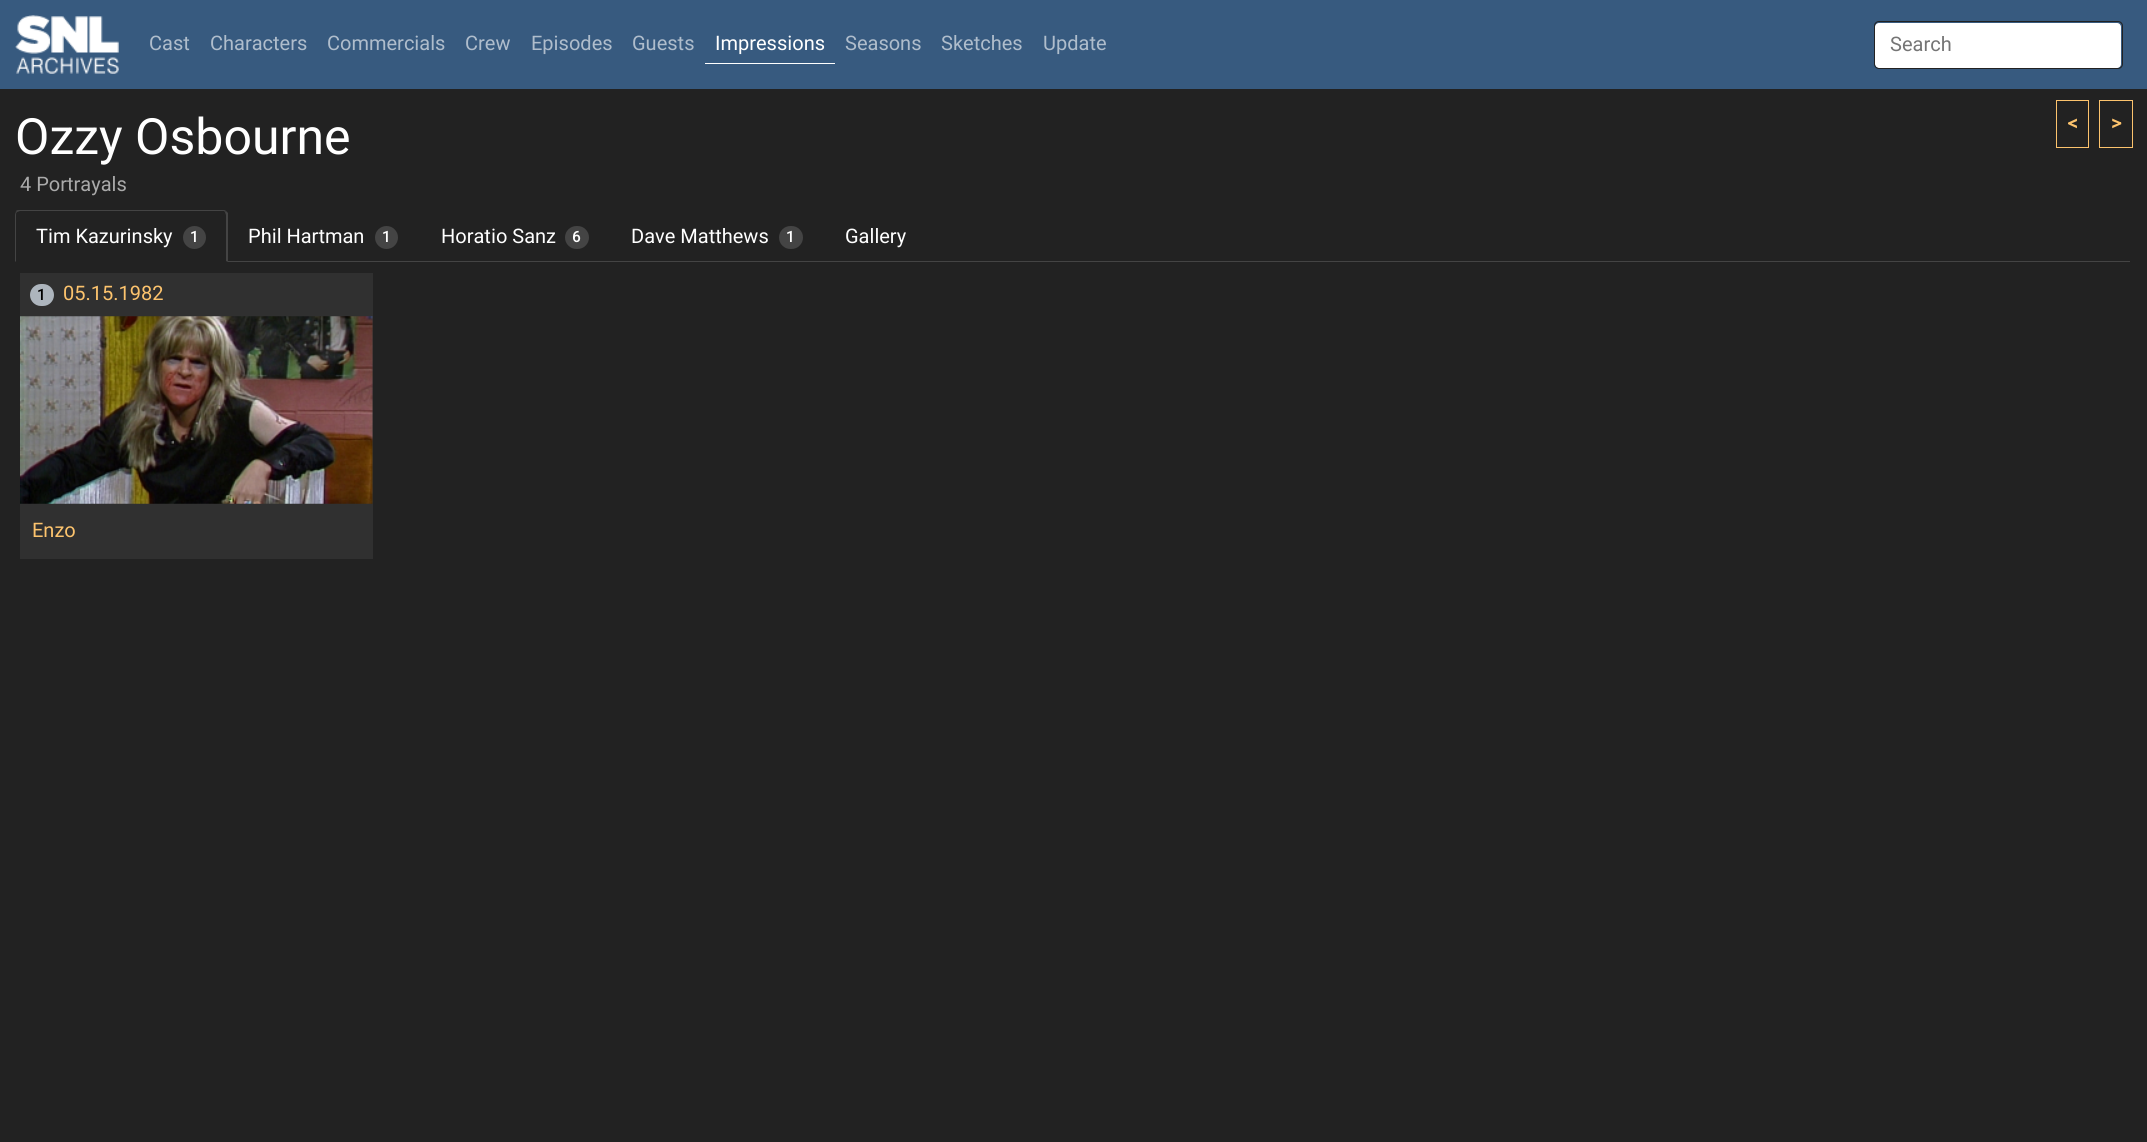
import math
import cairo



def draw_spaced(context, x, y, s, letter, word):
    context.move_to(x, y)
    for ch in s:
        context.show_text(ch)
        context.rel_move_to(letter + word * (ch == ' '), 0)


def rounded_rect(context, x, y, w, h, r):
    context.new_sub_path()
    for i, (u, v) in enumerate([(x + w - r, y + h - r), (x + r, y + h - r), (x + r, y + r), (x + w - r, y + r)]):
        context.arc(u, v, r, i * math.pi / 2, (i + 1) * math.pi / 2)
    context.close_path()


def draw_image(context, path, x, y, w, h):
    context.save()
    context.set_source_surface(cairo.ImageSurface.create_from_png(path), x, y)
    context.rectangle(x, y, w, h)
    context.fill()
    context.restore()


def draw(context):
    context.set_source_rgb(34 / 255, 34 / 255, 34 / 255)
    context.paint()
    context.set_source_rgb(55 / 255, 90 / 255, 127 / 255)
    context.rectangle(0, 0, 2147, 89)
    context.fill()
    draw_image(context, "images/1.png", 15, 15, 104, 59)
    context.set_source_rgb(1, 1, 1)
    context.rectangle(705, 63, 130, 1)
    context.fill()
    rounded_rect(context, 1875, 23, 246, 45, 4)
    context.fill()
    rounded_rect(context, 1874.5, 21.5, 248, 47, 4.5)
    context.set_source_rgb(34 / 255, 34 / 255, 34 / 255)
    context.set_line_width(1)
    context.stroke()
    context.rectangle(2056.5, 100.5, 32, 47)
    context.set_source_rgb(252 / 255, 195 / 255, 109 / 255)
    context.stroke()
    context.rectangle(2099.5, 100.5, 33, 47)
    context.stroke()
    context.set_source_rgb(68 / 255, 68 / 255, 68 / 255)
    context.rectangle(228, 261, 1902, 1)
    context.fill()
    context.new_path()
    context.move_to(20, 210)
    context.curve_to(18, 210, 17, 210, 16, 211)
    context.line_to(17, 212)
    context.line_to(20, 211)
    context.line_to(188, 211)
    context.line_to(224, 211)
    context.line_to(225, 212)
    context.line_to(226, 211)
    context.curve_to(225, 210, 224, 210, 222, 210)
    context.close_path()
    context.fill()
    context.new_path()
    context.move_to(228, 262)
    context.line_to(226, 261)
    context.line_to(226, 215)
    context.line_to(225, 212)
    context.line_to(226, 211)
    context.line_to(228, 213)
    context.close_path()
    context.fill()
    context.new_path()
    context.move_to(15, 215)
    context.line_to(15, 262)
    context.line_to(16, 261)
    context.line_to(16, 215)
    context.curve_to(16, 214, 16, 213, 17, 212)
    context.line_to(16, 211)
    context.curve_to(16, 212, 15, 214, 15, 215)
    context.close_path()
    context.fill()
    context.arc(194.5, 237.5, 11.5, 0, 2 * math.pi)
    context.fill()
    context.arc(386.5, 237.5, 11.5, 0, 2 * math.pi)
    context.fill()
    rounded_rect(context, 565, 226, 24, 23, 11.5)
    context.fill()
    rounded_rect(context, 779, 226, 24, 23, 11.5)
    context.fill()
    context.set_source_rgb(48 / 255, 48 / 255, 48 / 255)
    context.rectangle(20, 273, 353, 286)
    context.fill()
    context.set_source_rgb(173 / 255, 181 / 255, 189 / 255)
    rounded_rect(context, 30, 284, 24, 22, 11)
    context.fill()
    draw_image(context, "images/2.png", 20, 316, 353, 188)
    context.select_font_face("Heebo")
    context.set_font_size(20)
    context.set_source_rgb(175 / 255, 189 / 255, 204 / 255)
    context.move_to(149, 50)
    context.show_text("Cast")
    context.move_to(210, 50)
    context.show_text("Characters")
    context.move_to(327, 50)
    context.show_text("Commercials")
    context.move_to(465, 50)
    context.show_text("Crew")
    context.move_to(531, 50)
    context.show_text("Episodes")
    context.move_to(632, 50)
    context.show_text("Guests")
    context.set_source_rgb(1, 1, 1)
    context.move_to(715, 50)
    context.show_text("Impressions")
    context.set_source_rgb(175 / 255, 189 / 255, 204 / 255)
    context.move_to(845, 50)
    context.show_text("Seasons")
    context.move_to(941, 50)
    context.show_text("Sketches")
    context.move_to(1043, 50)
    context.show_text("Update")
    context.set_source_rgb(117 / 255, 117 / 255, 117 / 255)
    context.move_to(1890, 51)
    context.show_text("Search")
    context.set_font_size(50)
    context.set_source_rgb(1, 1, 1)
    context.move_to(15, 154)
    context.show_text("Ozzy Osbourne")
    context.select_font_face("Heebo", cairo.FontSlant.NORMAL, cairo.FontWeight.BOLD)
    context.set_font_size(20)
    context.set_source_rgb(252 / 255, 195 / 255, 109 / 255)
    context.move_to(2067, 130)
    context.show_text("<")
    context.move_to(2111, 130)
    context.show_text(">")
    context.select_font_face("Heebo")
    context.set_source_rgb(170 / 255, 170 / 255, 170 / 255)
    context.move_to(20, 191)
    context.show_text("4 Portrayals")
    context.set_source_rgb(1, 1, 1)
    context.move_to(36, 243)
    context.show_text("Tim Kazurinsky")
    context.select_font_face("Heebo", cairo.FontSlant.NORMAL, cairo.FontWeight.BOLD)
    context.set_font_size(15)
    draw_spaced(context, 190, 242, "1", 1, 0)
    context.select_font_face("Heebo")
    context.set_font_size(20)
    context.move_to(248, 243)
    context.show_text("Phil Hartman")
    context.select_font_face("Heebo", cairo.FontSlant.NORMAL, cairo.FontWeight.BOLD)
    context.set_font_size(15)
    draw_spaced(context, 382, 242, "1", 1, 0)
    context.select_font_face("Heebo")
    context.set_font_size(20)
    context.move_to(441, 243)
    context.show_text("Horatio Sanz")
    context.select_font_face("Heebo", cairo.FontSlant.NORMAL, cairo.FontWeight.BOLD)
    context.set_font_size(15)
    draw_spaced(context, 572, 242, "6", 1, 0)
    context.select_font_face("Heebo")
    context.set_font_size(20)
    context.move_to(631, 243)
    context.show_text("Dave Matthews")
    context.select_font_face("Heebo", cairo.FontSlant.NORMAL, cairo.FontWeight.BOLD)
    context.set_font_size(15)
    draw_spaced(context, 786, 242, "1", 1, 0)
    context.select_font_face("Heebo")
    context.set_font_size(20)
    context.move_to(845, 243)
    context.show_text("Gallery")
    context.select_font_face("Heebo", cairo.FontSlant.NORMAL, cairo.FontWeight.BOLD)
    context.set_font_size(15)
    context.set_source_rgb(0, 0, 0)
    draw_spaced(context, 37, 300, "1", 1, 0)
    context.select_font_face("Heebo")
    context.set_font_size(20)
    context.set_source_rgb(252 / 255, 195 / 255, 109 / 255)
    context.move_to(63, 300)
    context.show_text("05.15.1982")
    context.move_to(32, 537)
    context.show_text("Enzo")


surface = cairo.ImageSurface(cairo.Format.RGB24, 2147, 1142)
context = cairo.Context(surface)
options = cairo.FontOptions()
options.set_hint_metrics(cairo.HintMetrics.OFF)
options.set_hint_style(cairo.HintStyle.NONE)
context.set_font_options(options)
context.set_miter_limit(4)
draw(context)
surface.write_to_png("out.png")
